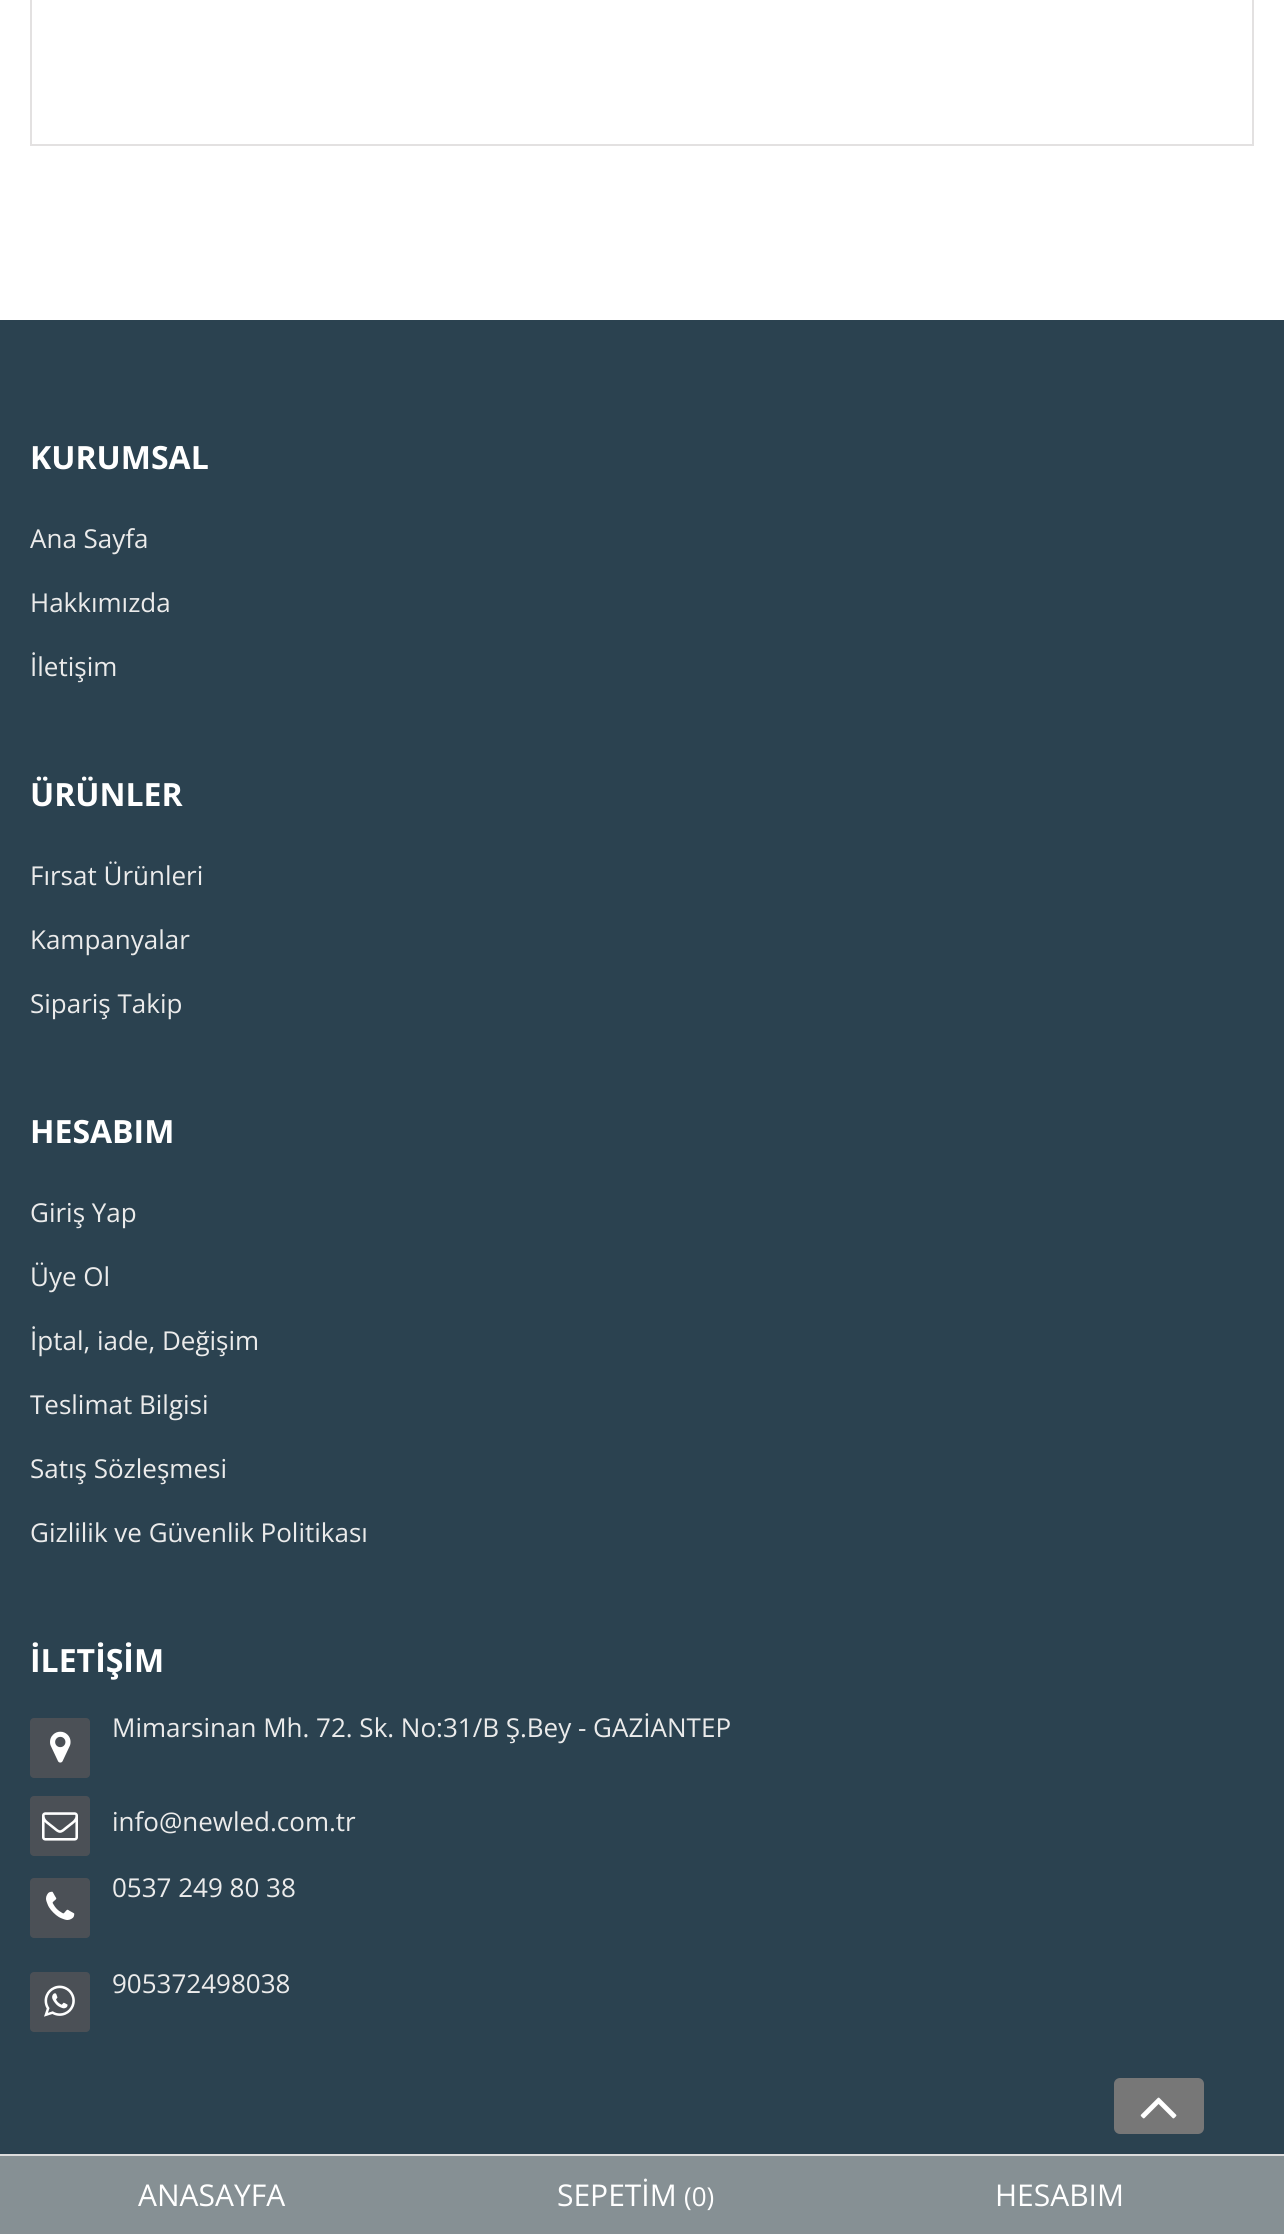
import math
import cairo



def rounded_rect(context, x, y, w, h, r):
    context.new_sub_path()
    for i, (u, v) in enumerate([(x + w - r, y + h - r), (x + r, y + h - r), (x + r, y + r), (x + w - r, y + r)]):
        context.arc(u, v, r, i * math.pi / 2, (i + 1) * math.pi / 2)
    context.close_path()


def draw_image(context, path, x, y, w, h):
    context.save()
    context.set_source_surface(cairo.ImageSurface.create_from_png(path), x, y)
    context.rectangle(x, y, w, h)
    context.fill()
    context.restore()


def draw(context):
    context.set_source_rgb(1, 1, 1)
    context.paint()
    context.rectangle(31, -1, 1222, 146)
    context.set_source_rgb(227 / 255, 225 / 255, 225 / 255)
    context.stroke()
    context.set_source_rgb(43 / 255, 66 / 255, 80 / 255)
    context.rectangle(0, 320, 1284, 1834)
    context.fill()
    context.set_source_rgb(75 / 255, 80 / 255, 86 / 255)
    rounded_rect(context, 30, 1718, 60, 60, 4)
    context.fill()
    draw_image(context, "images/1.png", 50, 1731, 21, 32)
    rounded_rect(context, 30, 1796, 60, 60, 4)
    context.fill()
    draw_image(context, "images/2.png", 42, 1812, 36, 29)
    rounded_rect(context, 30, 1878, 60, 60, 4)
    context.fill()
    draw_image(context, "images/3.png", 46, 1891, 29, 29)
    rounded_rect(context, 30, 1972, 60, 60, 4)
    context.fill()
    draw_image(context, "images/4.png", 44, 1985, 31, 32)
    context.set_source_rgb(119 / 255, 119 / 255, 119 / 255)
    rounded_rect(context, 1114, 2078, 90, 56, 6)
    context.fill()
    draw_image(context, "images/5.png", 1140, 2097, 37, 22)
    context.set_source_rgb(134 / 255, 144 / 255, 148 / 255)
    context.rectangle(0, 2156, 1284, 78)
    context.fill()
    context.set_source_rgb(221 / 255, 221 / 255, 221 / 255)
    context.rectangle(0, 2154, 1284, 2)
    context.fill()
    context.select_font_face("Open Sans", cairo.FontSlant.NORMAL, cairo.FontWeight.BOLD)
    context.set_font_size(32)
    context.set_source_rgb(1, 1, 1)
    context.move_to(30, 469)
    context.show_text("KURUMSAL")
    context.select_font_face("Open Sans")
    context.set_font_size(26)
    context.set_source_rgb(235 / 255, 235 / 255, 235 / 255)
    context.move_to(30, 548)
    context.show_text("Ana Sayfa")
    context.move_to(30, 612)
    context.show_text("Hakkımızda")
    context.move_to(30, 676)
    context.show_text("İletişim")
    context.select_font_face("Open Sans", cairo.FontSlant.NORMAL, cairo.FontWeight.BOLD)
    context.set_font_size(32)
    context.set_source_rgb(1, 1, 1)
    context.move_to(30, 806)
    context.show_text("ÜRÜNLER")
    context.select_font_face("Open Sans")
    context.set_font_size(26)
    context.set_source_rgb(235 / 255, 235 / 255, 235 / 255)
    context.move_to(30, 885)
    context.show_text("Fırsat Ürünleri")
    context.move_to(30, 949)
    context.show_text("Kampanyalar")
    context.move_to(30, 1013)
    context.show_text("Sipariş Takip")
    context.select_font_face("Open Sans", cairo.FontSlant.NORMAL, cairo.FontWeight.BOLD)
    context.set_font_size(32)
    context.set_source_rgb(1, 1, 1)
    context.move_to(30, 1143)
    context.show_text("HESABIM")
    context.select_font_face("Open Sans")
    context.set_font_size(26)
    context.set_source_rgb(235 / 255, 235 / 255, 235 / 255)
    context.move_to(30, 1222)
    context.show_text("Giriş Yap")
    context.move_to(30, 1286)
    context.show_text("Üye Ol")
    context.move_to(30, 1350)
    context.show_text("İptal, iade, Değişim")
    context.move_to(30, 1414)
    context.show_text("Teslimat Bilgisi")
    context.move_to(30, 1478)
    context.show_text("Satış Sözleşmesi")
    context.move_to(30, 1542)
    context.show_text("Gizlilik ve Güvenlik Politikası")
    context.select_font_face("Open Sans", cairo.FontSlant.NORMAL, cairo.FontWeight.BOLD)
    context.set_font_size(32)
    context.set_source_rgb(1, 1, 1)
    context.move_to(30, 1672)
    context.show_text("İLETİŞİM")
    context.select_font_face("Open Sans")
    context.set_font_size(26)
    context.set_source_rgb(235 / 255, 235 / 255, 235 / 255)
    context.move_to(112, 1737)
    context.show_text("Mimarsinan Mh. 72. Sk. No:31/B Ş.Bey - GAZİANTEP")
    context.move_to(112, 1831)
    context.show_text("info@newled.com.tr")
    context.move_to(112, 1897)
    context.show_text("0537 249 80 38")
    context.move_to(112, 1993)
    context.show_text("905372498038")
    context.set_font_size(30)
    context.set_source_rgb(1, 1, 1)
    context.move_to(138, 2206)
    context.show_text("ANASAYFA")
    context.move_to(557, 2206)
    context.show_text("SEPETİM")
    context.set_font_size(26)
    context.move_to(684, 2206)
    context.show_text("(0)")
    context.set_font_size(30)
    context.move_to(995, 2206)
    context.show_text("HESABIM")


surface = cairo.ImageSurface(cairo.Format.RGB24, 1284, 2234)
context = cairo.Context(surface)
options = cairo.FontOptions()
options.set_hint_metrics(cairo.HintMetrics.OFF)
options.set_hint_style(cairo.HintStyle.NONE)
context.set_font_options(options)
context.set_miter_limit(4)
draw(context)
surface.write_to_png("out.png")
